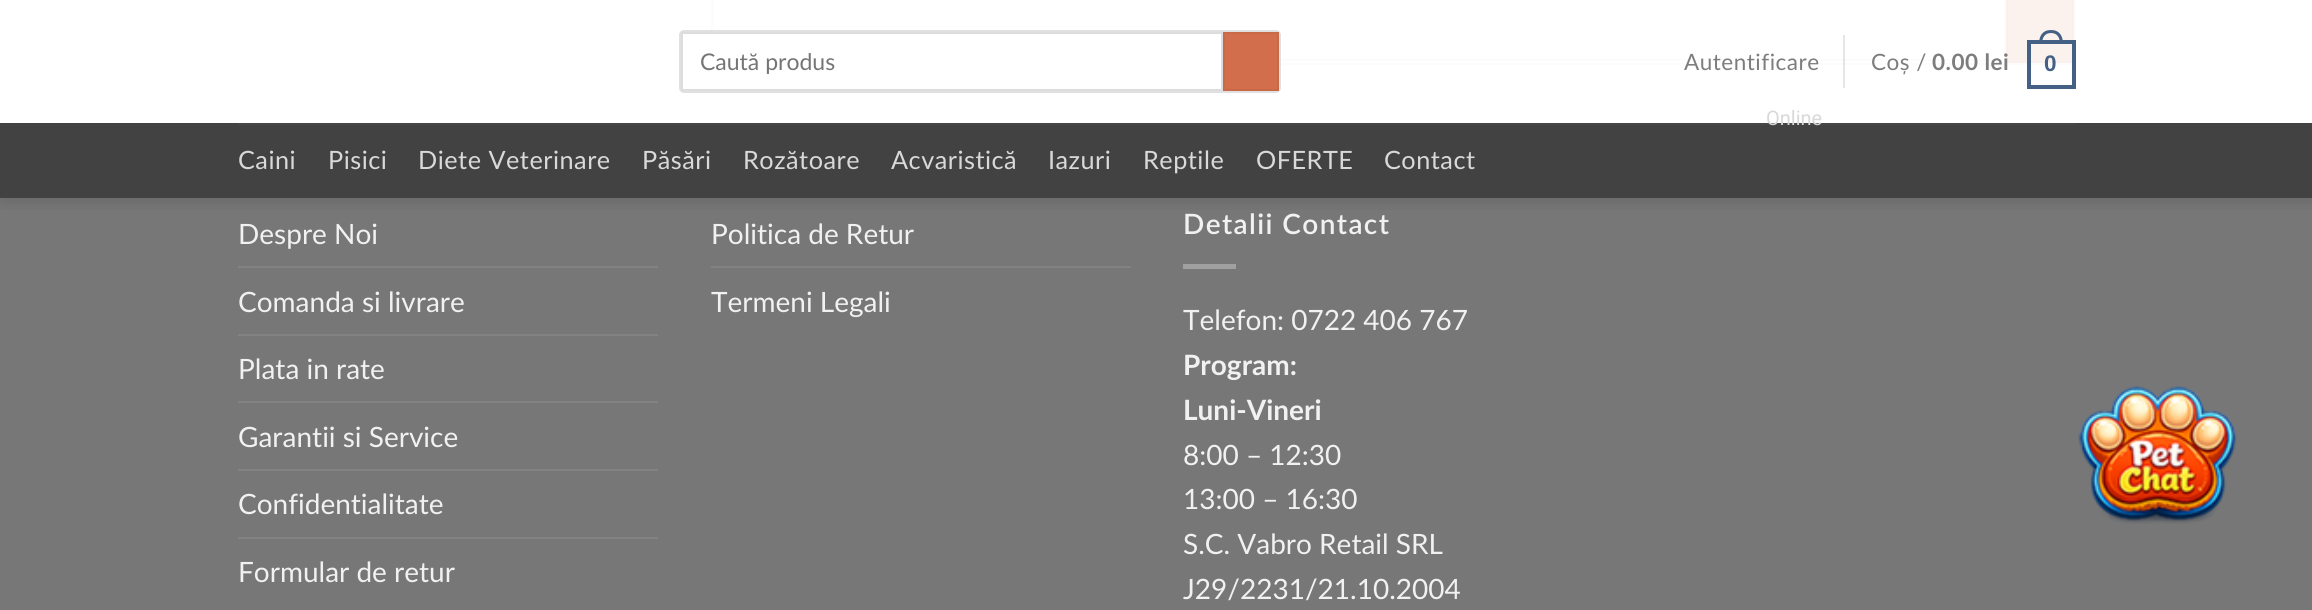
import math
import cairo



def draw_spaced(context, x, y, s, letter, word):
    context.move_to(x, y)
    for ch in s:
        context.show_text(ch)
        context.rel_move_to(letter + word * (ch == ' '), 0)


def rounded_rect(context, x, y, w, h, r):
    context.new_sub_path()
    for i, (u, v) in enumerate([(x + w - r, y + h - r), (x + r, y + h - r), (x + r, y + r), (x + w - r, y + r)]):
        context.arc(u, v, r, i * math.pi / 2, (i + 1) * math.pi / 2)
    context.close_path()


def draw_shadow(context, x, y, w, h, r, blur, alpha):
    context.push_group_with_content(cairo.Content.ALPHA)
    context.set_operator(cairo.Operator.SOURCE)
    for i in range(15, -16, -2):
        e = blur * i / 6
        if min(w, h) + 2 * e > 0:
            context.set_source_rgba(0, 0, 0, alpha * math.erfc((i - 1) / 8.5) / 2)
            rounded_rect(context, x - e, y - e, w + 2 * e, h + 2 * e, max(0, min(r + e + blur * .6, min(w, h) / 2 + e)))
            context.fill()
    context.mask(context.pop_group())


def draw_image(context, path, x, y, w, h):
    context.save()
    context.set_source_surface(cairo.ImageSurface.create_from_png(path), x, y)
    context.rectangle(x, y, w, h)
    context.fill()
    context.restore()


def draw(context):
    context.set_source_rgb(1, 1, 1)
    context.paint()
    context.rectangle(712, -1, 1363, 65)
    context.set_source_rgb(224 / 255, 224 / 255, 224 / 255)
    context.stroke()
    context.rectangle(713, -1, 1292, 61)
    context.set_source_rgb(221 / 255, 221 / 255, 221 / 255)
    context.stroke()
    context.set_source_rgb(210 / 255, 110 / 255, 75 / 255)
    context.rectangle(2007, -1, 66, 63)
    context.fill_preserve()
    context.set_source_rgb(200 / 255, 105 / 255, 71 / 255)
    context.stroke()
    context.set_source_rgb(119 / 255, 119 / 255, 119 / 255)
    context.rectangle(0, 198, 2312, 412)
    context.fill()
    context.save()
    context.rectangle(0, 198, 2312, 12)
    context.clip()
    context.set_source_rgb(0, 0, 0)
    draw_shadow(context, 2, 2, 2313, 198, 0, 9, 0.15)
    context.restore()
    context.set_source_rgba(1, 1, 1, 0.9)
    context.rectangle(711, 0, 1365, 65)
    context.fill()
    rounded_rect(context, 680, 31, 600, 61, 4)
    context.set_source_rgb(224 / 255, 224 / 255, 224 / 255)
    context.stroke()
    context.set_source_rgb(1, 1, 1)
    context.rectangle(711, 34, 510, 31)
    context.fill()
    context.rectangle(682, 33, 540, 57)
    context.set_source_rgb(221 / 255, 221 / 255, 221 / 255)
    context.stroke()
    context.set_source_rgb(210 / 255, 110 / 255, 75 / 255)
    context.rectangle(1224, 33, 54, 57)
    context.fill_preserve()
    context.set_source_rgb(200 / 255, 105 / 255, 71 / 255)
    context.stroke()
    context.set_source_rgba(0, 0, 0, 0.1)
    context.rectangle(1843, 35, 2, 53)
    context.fill()
    context.rectangle(2029, 42, 45, 45)
    context.set_source_rgb(68 / 255, 96 / 255, 132 / 255)
    context.set_line_width(4)
    context.stroke()
    context.set_fill_rule(cairo.FillRule.EVEN_ODD)
    context.new_path()
    context.move_to(2051, 30)
    context.curve_to(2059.5, 30, 2063, 36, 2063, 44)
    context.line_to(2039, 44)
    context.curve_to(2039, 36, 2042.5, 30, 2051, 30)
    context.close_path()
    context.move_to(2051, 33)
    context.curve_to(2057.5, 33, 2060, 38, 2060, 44)
    context.line_to(2042, 44)
    context.curve_to(2042, 38, 2044.5, 33, 2051, 33)
    context.close_path()
    context.fill()
    context.set_source_rgb(66 / 255, 66 / 255, 66 / 255)
    context.rectangle(0, 123, 2312, 75)
    context.fill()
    context.set_source_rgb(71 / 255, 71 / 255, 71 / 255)
    context.rectangle(238, 123, 1838, 2)
    context.fill()
    context.set_source_rgb(130 / 255, 130 / 255, 130 / 255)
    context.rectangle(238, 266, 420, 2)
    context.fill()
    context.rectangle(238, 334, 420, 2)
    context.fill()
    context.rectangle(238, 401, 420, 2)
    context.fill()
    context.rectangle(238, 469, 420, 2)
    context.fill()
    context.rectangle(238, 537, 420, 2)
    context.fill()
    context.rectangle(711, 266, 420, 2)
    context.fill()
    context.set_source_rgb(160 / 255, 160 / 255, 160 / 255)
    context.rectangle(1183, 264, 53, 5)
    context.fill()
    draw_image(context, "images/1.png", 2078, 386, 159, 138)
    context.select_font_face("Lato")
    context.set_font_size(23)
    context.set_source_rgb(117 / 255, 117 / 255, 117 / 255)
    context.move_to(700, 70)
    context.show_text("Caută produs")
    context.set_font_size(22.5)
    context.set_source_rgb(125 / 255, 125 / 255, 125 / 255)
    draw_spaced(context, 1684, 70, "Autentificare", 0.5, 0)
    draw_spaced(context, 1871, 70, "Coș /", 0.5, 0)
    context.select_font_face("Lato", cairo.FontSlant.NORMAL, cairo.FontWeight.BOLD)
    draw_spaced(context, 1932, 70, "0.00 lei", 0.5, 0)
    context.select_font_face("Liberation Sans", cairo.FontSlant.NORMAL, cairo.FontWeight.BOLD)
    context.set_source_rgb(68 / 255, 96 / 255, 132 / 255)
    draw_spaced(context, 2044, 71, "0", 0.5, 0)
    context.select_font_face("Lato")
    context.set_font_size(25.25)
    context.set_source_rgb(217 / 255, 217 / 255, 217 / 255)
    draw_spaced(context, 238, 169, "Caini", 0.5, 0)
    draw_spaced(context, 328, 169, "Pisici", 0.5, 0)
    draw_spaced(context, 418, 169, "Diete Veterinare", 0.5, 0)
    draw_spaced(context, 642, 169, "Păsări", 0.5, 0)
    draw_spaced(context, 743, 169, "Rozătoare", 0.5, 0)
    draw_spaced(context, 891, 169, "Acvaristică", 0.5, 0)
    draw_spaced(context, 1048, 169, "Iazuri", 0.5, 0)
    draw_spaced(context, 1143, 169, "Reptile", 0.5, 0)
    draw_spaced(context, 1256, 169, "OFERTE", 0.5, 0)
    draw_spaced(context, 1384, 169, "Contact", 0.5, 0)
    context.set_font_size(28)
    context.set_source_rgb(241 / 255, 241 / 255, 241 / 255)
    context.move_to(238, 244)
    context.show_text("Despre Noi")
    context.move_to(238, 312)
    context.show_text("Comanda si livrare")
    context.move_to(238, 379)
    context.show_text("Plata in rate")
    context.move_to(238, 447)
    context.show_text("Garantii si Service")
    context.move_to(238, 514)
    context.show_text("Confidentialitate")
    context.move_to(238, 582)
    context.show_text("Formular de retur")
    context.move_to(711, 244)
    context.show_text("Politica de Retur")
    context.move_to(711, 312)
    context.show_text("Termeni Legali")
    context.select_font_face("Lato SemiBold")
    draw_spaced(context, 1183, 234, "Detalii Contact", 1.4, 0)
    context.select_font_face("Lato")
    context.move_to(1183, 330)
    context.show_text("Telefon: 0722 406 767")
    context.select_font_face("Lato", cairo.FontSlant.NORMAL, cairo.FontWeight.BOLD)
    context.move_to(1183, 375)
    context.show_text("Program:")
    context.move_to(1183, 420)
    context.show_text("Luni-Vineri")
    context.select_font_face("Lato")
    context.move_to(1183, 465)
    context.show_text("8:00 – 12:30")
    context.move_to(1183, 509)
    context.show_text("13:00 – 16:30")
    context.move_to(1183, 554)
    context.show_text("S.C. Vabro Retail SRL")
    context.move_to(1183, 599)
    context.show_text("J29/2231/21.10.2004")
    context.select_font_face("Roboto")
    context.set_font_size(20)
    context.set_source_rgb(217 / 255, 217 / 255, 217 / 255)
    context.move_to(1766, 125)
    context.show_text("Online")


surface = cairo.ImageSurface(cairo.Format.RGB24, 2312, 610)
context = cairo.Context(surface)
options = cairo.FontOptions()
options.set_hint_metrics(cairo.HintMetrics.OFF)
options.set_hint_style(cairo.HintStyle.NONE)
context.set_font_options(options)
context.set_miter_limit(4)
draw(context)
surface.write_to_png("out.png")
